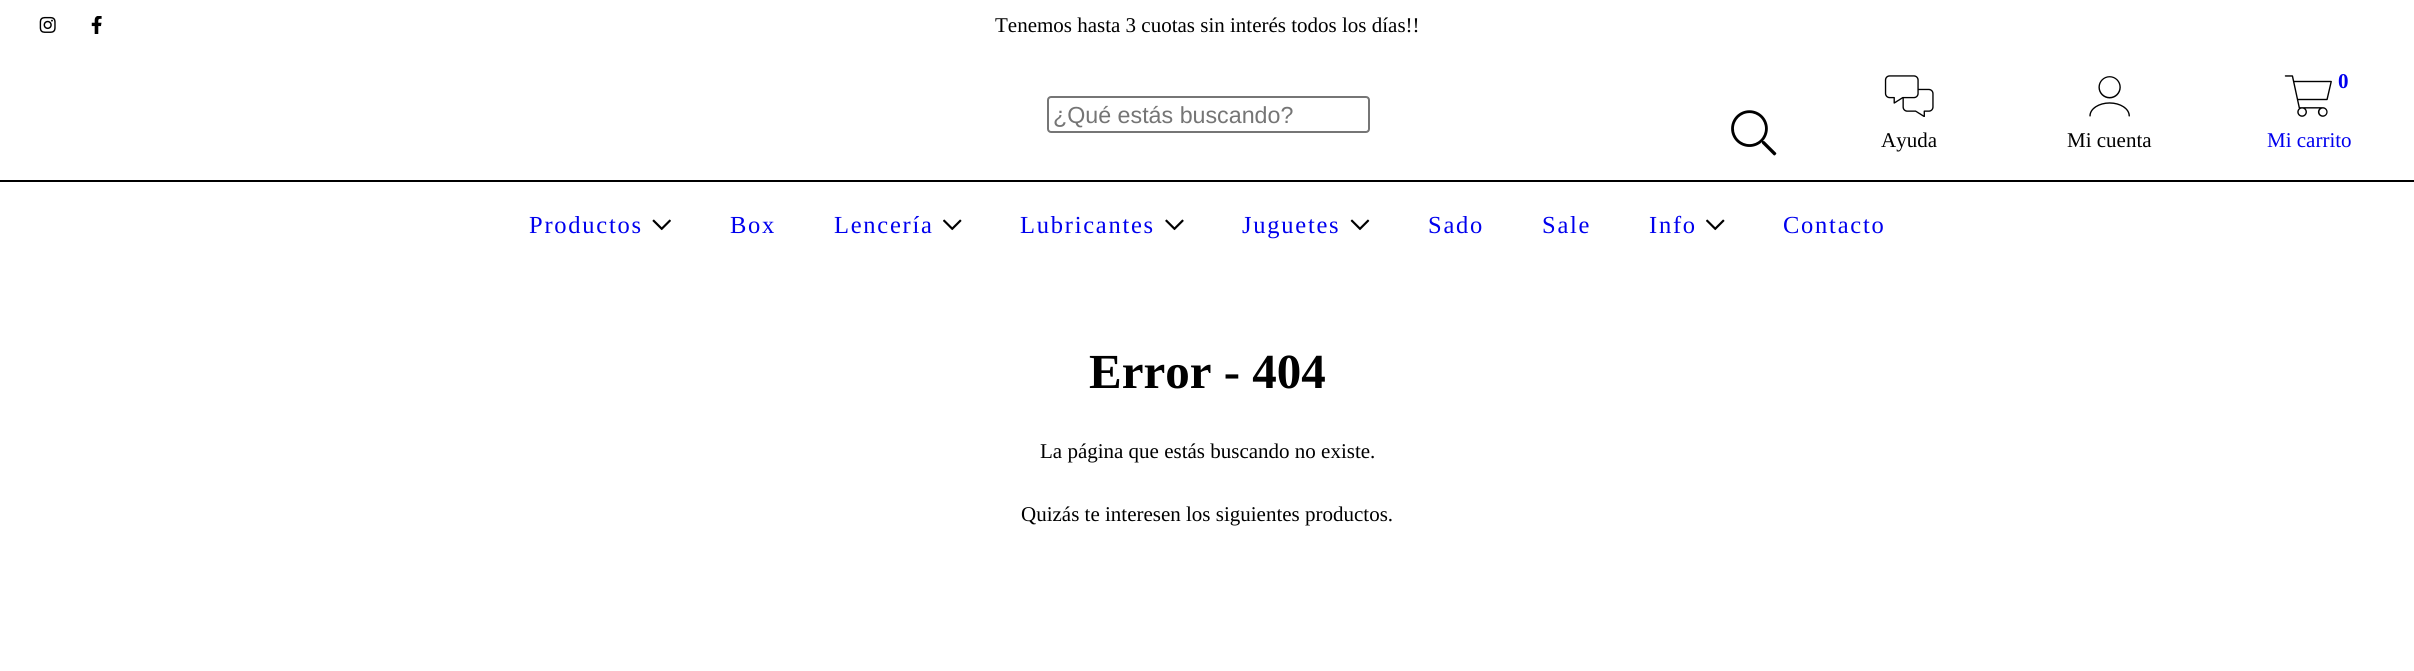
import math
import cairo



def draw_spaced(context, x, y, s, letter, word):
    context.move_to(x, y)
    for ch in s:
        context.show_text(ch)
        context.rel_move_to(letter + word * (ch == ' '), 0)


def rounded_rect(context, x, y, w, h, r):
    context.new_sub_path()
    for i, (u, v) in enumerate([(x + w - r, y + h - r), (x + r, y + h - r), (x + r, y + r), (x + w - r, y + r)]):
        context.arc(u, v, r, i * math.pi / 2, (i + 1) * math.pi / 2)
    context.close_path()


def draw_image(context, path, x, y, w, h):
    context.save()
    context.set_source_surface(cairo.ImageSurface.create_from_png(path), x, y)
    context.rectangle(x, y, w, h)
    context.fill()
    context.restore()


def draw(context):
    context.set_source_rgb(1, 1, 1)
    context.paint()
    draw_image(context, "images/1.png", 39, 16, 17, 17)
    draw_image(context, "images/2.png", 91, 16, 11, 18)
    rounded_rect(context, 1048, 97, 321, 35, 3)
    context.set_source_rgb(118 / 255, 118 / 255, 118 / 255)
    context.stroke()
    draw_image(context, "images/3.png", 1731, 110, 46, 46)
    draw_image(context, "images/4.png", 1884, 75, 50, 42)
    draw_image(context, "images/5.png", 2089, 76, 41, 41)
    draw_image(context, "images/6.png", 2284, 75, 48, 42)
    context.set_source_rgb(0, 0, 0)
    context.rectangle(0, 180, 2414, 2)
    context.fill()
    draw_image(context, "images/7.png", 652, 219, 19, 12)
    draw_image(context, "images/8.png", 943, 219, 19, 12)
    draw_image(context, "images/9.png", 1165, 219, 19, 12)
    draw_image(context, "images/10.png", 1350, 219, 20, 12)
    draw_image(context, "images/8.png", 1706, 219, 19, 12)
    context.select_font_face("Liberation Serif")
    context.set_font_size(21)
    context.move_to(995, 32)
    context.show_text("Tenemos hasta 3 cuotas sin interés todos los días!!")
    context.select_font_face("Liberation Sans")
    context.set_font_size(23.25)
    context.set_source_rgb(117 / 255, 117 / 255, 117 / 255)
    context.move_to(1053, 123)
    context.show_text("¿Qué estás buscando?")
    context.select_font_face("Liberation Serif")
    context.set_font_size(21)
    context.set_source_rgb(0, 0, 0)
    context.move_to(1881, 147)
    context.show_text("Ayuda")
    context.move_to(2067, 147)
    context.show_text("Mi cuenta")
    context.select_font_face("Liberation Serif", cairo.FontSlant.NORMAL, cairo.FontWeight.BOLD)
    context.set_source_rgb(0, 0, 238 / 255)
    context.move_to(2338, 88)
    context.show_text("0")
    context.select_font_face("Liberation Serif")
    context.move_to(2267, 147)
    context.show_text("Mi carrito")
    context.set_font_size(24.5)
    draw_spaced(context, 529, 233, "Productos", 1.75, 0)
    draw_spaced(context, 730, 233, "Box", 1.75, 0)
    draw_spaced(context, 834, 233, "Lencería", 1.75, 0)
    draw_spaced(context, 1020, 233, "Lubricantes", 1.75, 0)
    draw_spaced(context, 1242, 233, "Juguetes", 1.75, 0)
    draw_spaced(context, 1428, 233, "Sado", 1.75, 0)
    draw_spaced(context, 1542, 233, "Sale", 1.75, 0)
    draw_spaced(context, 1649, 233, "Info", 1.75, 0)
    draw_spaced(context, 1783, 233, "Contacto", 1.75, 0)
    context.select_font_face("Liberation Serif", cairo.FontSlant.NORMAL, cairo.FontWeight.BOLD)
    context.set_font_size(49)
    context.set_source_rgb(0, 0, 0)
    context.move_to(1089, 388)
    context.show_text("Error - 404")
    context.select_font_face("Liberation Serif")
    context.set_font_size(21)
    context.move_to(1040, 458)
    context.show_text("La página que estás buscando no existe.")
    context.move_to(1021, 521)
    context.show_text("Quizás te interesen los siguientes productos.")


surface = cairo.ImageSurface(cairo.Format.RGB24, 2414, 671)
context = cairo.Context(surface)
options = cairo.FontOptions()
options.set_hint_metrics(cairo.HintMetrics.OFF)
options.set_hint_style(cairo.HintStyle.NONE)
context.set_font_options(options)
context.set_miter_limit(4)
draw(context)
surface.write_to_png("out.png")
